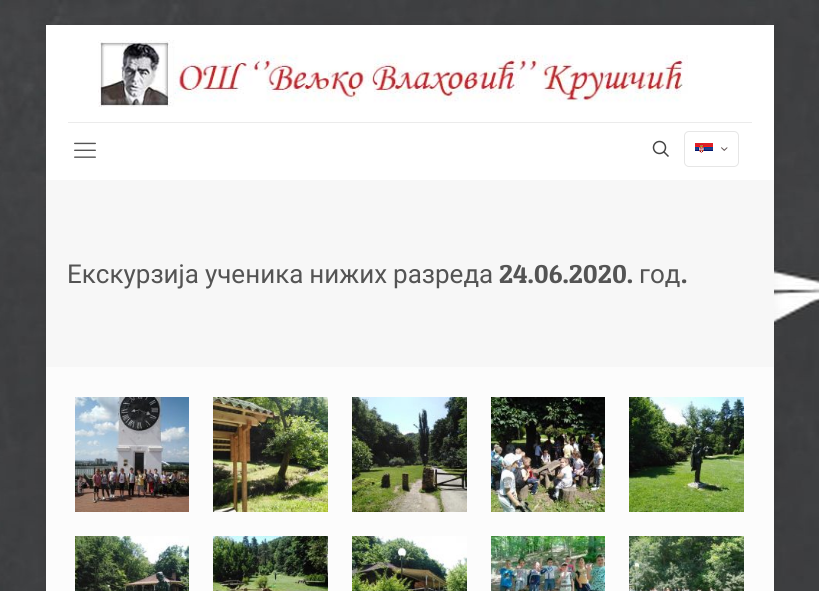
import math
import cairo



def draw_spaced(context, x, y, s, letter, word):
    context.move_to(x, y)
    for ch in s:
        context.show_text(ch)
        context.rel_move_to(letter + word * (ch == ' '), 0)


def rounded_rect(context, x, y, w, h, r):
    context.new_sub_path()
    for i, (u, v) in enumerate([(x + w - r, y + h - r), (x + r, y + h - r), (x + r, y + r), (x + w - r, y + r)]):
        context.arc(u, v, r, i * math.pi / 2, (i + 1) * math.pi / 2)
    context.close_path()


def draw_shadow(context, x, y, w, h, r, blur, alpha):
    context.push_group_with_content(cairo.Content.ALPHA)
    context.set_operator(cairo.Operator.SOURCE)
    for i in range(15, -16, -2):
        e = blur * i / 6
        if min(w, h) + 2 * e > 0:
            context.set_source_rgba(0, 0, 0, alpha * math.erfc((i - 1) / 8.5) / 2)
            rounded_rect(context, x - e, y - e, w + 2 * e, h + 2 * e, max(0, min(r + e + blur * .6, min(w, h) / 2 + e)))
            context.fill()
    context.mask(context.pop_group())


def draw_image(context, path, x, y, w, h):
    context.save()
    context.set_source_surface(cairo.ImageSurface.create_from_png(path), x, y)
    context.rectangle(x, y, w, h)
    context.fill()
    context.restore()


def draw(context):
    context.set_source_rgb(1, 1, 1)
    context.paint()
    draw_image(context, "images/1.png", 0, 0, 819, 591)
    context.set_source_rgb(0, 0, 0)
    draw_shadow(context, 46, 25, 728, 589, 0, 7.5, 0.06)
    context.set_source_rgb(252 / 255, 252 / 255, 252 / 255)
    context.rectangle(46, 367, 728, 224)
    context.fill()
    context.set_source_rgb(1, 1, 1)
    context.rectangle(46, 25, 728, 155)
    context.fill()
    context.set_source_rgb(235 / 255, 235 / 255, 235 / 255)
    context.rectangle(68, 122, 684, 1)
    context.fill()
    draw_image(context, "images/2.png", 98, 40, 590, 67)
    draw_image(context, "images/3.png", 74, 142, 22, 16)
    context.arc(659.5, 147.5, 6, 0, 2 * math.pi)
    context.set_source_rgb(68 / 255, 68 / 255, 68 / 255)
    context.set_line_width(1.5)
    context.stroke()
    context.new_path()
    context.move_to(663.5, 151.5)
    context.line_to(668.5, 156.5)
    context.stroke()
    rounded_rect(context, 684.5, 131.5, 54, 35, 4.5)
    context.set_source_rgb(230 / 255, 230 / 255, 230 / 255)
    context.set_line_width(1)
    context.stroke()
    draw_image(context, "images/4.png", 695, 143, 18, 10)
    draw_image(context, "images/5.png", 721, 147, 7, 4)
    context.set_source_rgb(247 / 255, 247 / 255, 247 / 255)
    context.rectangle(46, 180, 728, 187)
    context.fill()
    draw_image(context, "images/6.png", 75, 397, 114, 115)
    draw_image(context, "images/7.png", 213, 397, 115, 115)
    draw_image(context, "images/8.png", 352, 397, 115, 115)
    draw_image(context, "images/9.png", 491, 397, 114, 115)
    draw_image(context, "images/10.png", 629, 397, 115, 115)
    draw_image(context, "images/11.png", 75, 536, 114, 55)
    draw_image(context, "images/12.png", 213, 536, 115, 55)
    draw_image(context, "images/13.png", 352, 536, 115, 55)
    draw_image(context, "images/14.png", 491, 536, 114, 55)
    draw_image(context, "images/15.png", 629, 536, 115, 55)
    context.select_font_face("Roboto")
    context.set_font_size(26)
    context.set_source_rgb(84 / 255, 84 / 255, 84 / 255)
    draw_spaced(context, 67, 283, "Екскурзија ученика нижих разреда", 0, -0.5)
    context.select_font_face("Patua One")
    context.move_to(499, 283)
    context.show_text("24.06.2020.")
    context.select_font_face("Roboto")
    context.move_to(639, 283)
    context.show_text("год")
    context.select_font_face("Patua One")
    context.move_to(681, 283)
    context.show_text(".")


surface = cairo.ImageSurface(cairo.Format.RGB24, 819, 591)
context = cairo.Context(surface)
options = cairo.FontOptions()
options.set_hint_metrics(cairo.HintMetrics.OFF)
options.set_hint_style(cairo.HintStyle.NONE)
context.set_font_options(options)
context.set_miter_limit(4)
draw(context)
surface.write_to_png("out.png")
